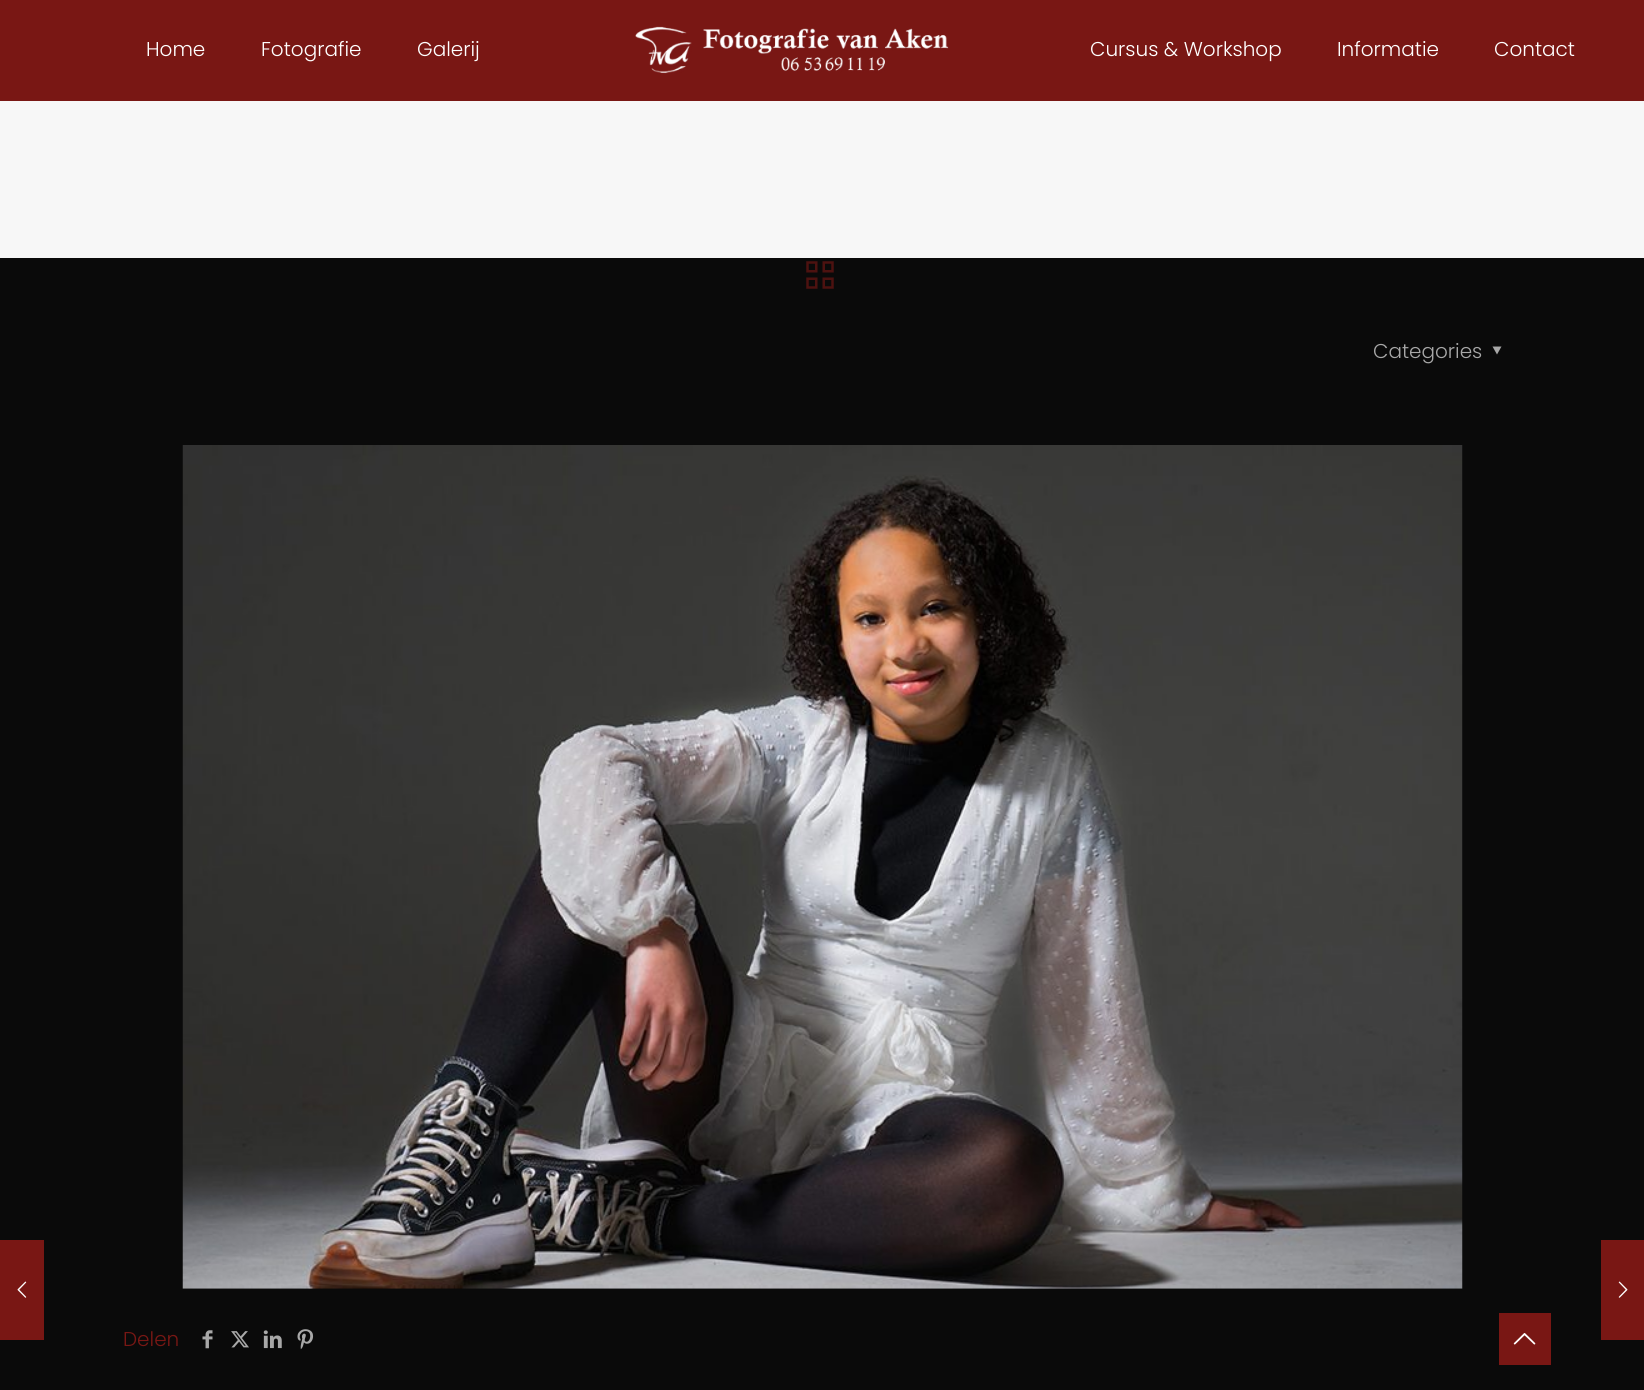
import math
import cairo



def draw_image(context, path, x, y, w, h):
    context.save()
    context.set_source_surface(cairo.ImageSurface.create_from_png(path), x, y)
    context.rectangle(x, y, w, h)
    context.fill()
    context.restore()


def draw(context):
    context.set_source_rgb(121 / 255, 23 / 255, 20 / 255)
    context.paint()
    context.set_source_rgb(10 / 255, 10 / 255, 10 / 255)
    context.rectangle(0, 258, 1644, 1132)
    context.fill()
    context.set_source_rgb(121 / 255, 23 / 255, 20 / 255)
    context.rectangle(0, 1240, 44, 100)
    context.fill()
    draw_image(context, "images/1.png", 17, 1281, 10, 17)
    draw_image(context, "images/2.png", 635, 26, 314, 48)
    context.set_source_rgb(247 / 255, 247 / 255, 247 / 255)
    context.rectangle(0, 101, 1644, 157)
    context.fill()
    draw_image(context, "images/3.png", 806, 261, 28, 28)
    context.set_source_rgb(168 / 255, 168 / 255, 168 / 255)
    context.new_path()
    context.move_to(1501.5, 346.5)
    context.line_to(1497, 354.5)
    context.line_to(1492.5, 346.5)
    context.close_path()
    context.fill()
    draw_image(context, "images/4.png", 182, 445, 1281, 844)
    draw_image(context, "images/5.png", 202, 1330, 11, 19)
    draw_image(context, "images/6.png", 231, 1331, 18, 17)
    draw_image(context, "images/7.png", 263, 1330, 19, 19)
    draw_image(context, "images/8.png", 297, 1329, 17, 21)
    context.set_source_rgb(121 / 255, 23 / 255, 20 / 255)
    context.rectangle(1601, 1240, 43, 100)
    context.fill()
    draw_image(context, "images/9.png", 1618, 1281, 10, 17)
    context.rectangle(1499, 1313, 52, 52)
    context.fill()
    draw_image(context, "images/10.png", 1513, 1333, 23, 12)
    context.select_font_face("Poppins Light")
    context.set_font_size(20)
    context.set_source_rgb(1, 1, 1)
    context.move_to(146, 56)
    context.show_text("Home")
    context.move_to(261, 56)
    context.show_text("Fotografie")
    context.move_to(417, 56)
    context.show_text("Galerij")
    context.move_to(1090, 56)
    context.show_text("Cursus & Workshop")
    context.move_to(1337, 56)
    context.show_text("Informatie")
    context.move_to(1494, 56)
    context.show_text("Contact")
    context.set_source_rgb(168 / 255, 168 / 255, 168 / 255)
    context.move_to(1373, 358)
    context.show_text("Categories")
    context.set_source_rgb(121 / 255, 23 / 255, 20 / 255)
    context.move_to(123, 1346)
    context.show_text("Delen")


surface = cairo.ImageSurface(cairo.Format.RGB24, 1644, 1390)
context = cairo.Context(surface)
options = cairo.FontOptions()
options.set_hint_metrics(cairo.HintMetrics.OFF)
options.set_hint_style(cairo.HintStyle.NONE)
context.set_font_options(options)
context.set_miter_limit(4)
draw(context)
surface.write_to_png("out.png")
